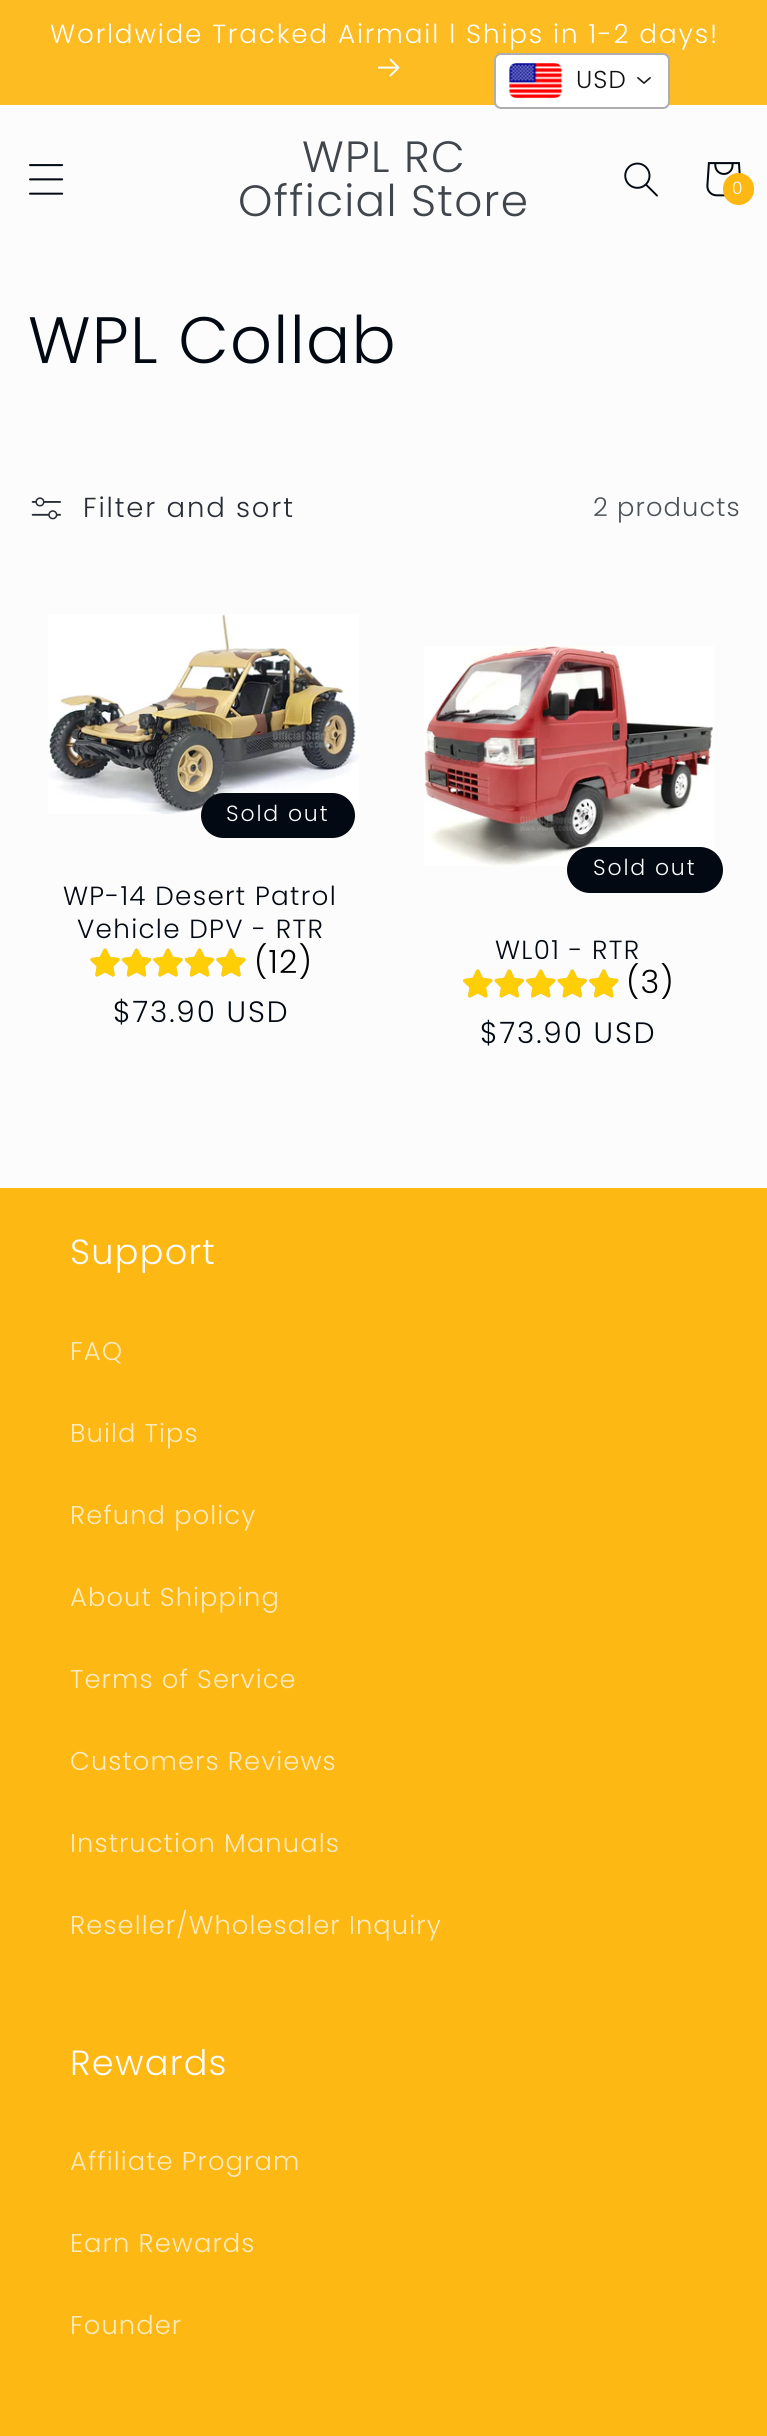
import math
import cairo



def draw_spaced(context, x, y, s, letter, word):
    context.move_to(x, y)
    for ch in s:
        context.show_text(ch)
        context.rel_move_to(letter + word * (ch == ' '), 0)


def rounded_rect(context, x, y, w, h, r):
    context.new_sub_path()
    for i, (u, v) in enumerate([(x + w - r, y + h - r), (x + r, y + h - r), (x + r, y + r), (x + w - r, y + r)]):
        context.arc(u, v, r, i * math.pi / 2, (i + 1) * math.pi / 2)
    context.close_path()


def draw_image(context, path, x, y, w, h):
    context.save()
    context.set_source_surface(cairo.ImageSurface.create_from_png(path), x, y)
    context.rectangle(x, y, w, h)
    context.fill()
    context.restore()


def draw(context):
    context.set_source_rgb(252 / 255, 252 / 255, 252 / 255)
    context.paint()
    context.set_source_rgb(253 / 255, 189 / 255, 38 / 255)
    context.rectangle(0, 103, 767, 2)
    context.fill()
    context.set_source_rgb(253 / 255, 188 / 255, 33 / 255)
    context.rectangle(0, 0, 767, 103)
    context.fill()
    draw_image(context, "images/1.png", 378, 58, 22, 19)
    context.set_source_rgb(1, 1, 1)
    rounded_rect(context, 495, 54, 174, 54, 6)
    context.fill_preserve()
    context.set_source_rgb(174 / 255, 174 / 255, 174 / 255)
    context.stroke()
    draw_image(context, "images/2.png", 509, 63, 54, 35)
    draw_image(context, "images/3.png", 637, 77, 14, 7)
    draw_image(context, "images/4.png", 29, 164, 35, 31)
    draw_image(context, "images/5.png", 624, 162, 34, 35)
    draw_image(context, "images/6.png", 706, 162, 35, 35)
    context.set_source_rgb(253 / 255, 184 / 255, 19 / 255)
    rounded_rect(context, 723, 173, 31, 32, 15.5)
    context.fill()
    draw_image(context, "images/7.png", 31, 497, 30, 23)
    draw_image(context, "images/8.png", 48, 614, 311, 200)
    context.set_source_rgb(2 / 255, 9 / 255, 18 / 255)
    rounded_rect(context, 202, 794, 152, 43, 21.5)
    context.fill_preserve()
    context.stroke()
    draw_image(context, "images/9.png", 90, 948, 30, 29)
    draw_image(context, "images/10.png", 122, 948, 29, 29)
    draw_image(context, "images/9.png", 153, 948, 30, 29)
    draw_image(context, "images/10.png", 185, 948, 29, 29)
    draw_image(context, "images/9.png", 216, 948, 30, 29)
    draw_image(context, "images/11.png", 90, 948, 30, 29)
    draw_image(context, "images/12.png", 121, 948, 31, 29)
    draw_image(context, "images/11.png", 153, 948, 30, 29)
    draw_image(context, "images/12.png", 184, 948, 31, 29)
    draw_image(context, "images/11.png", 216, 948, 30, 29)
    draw_image(context, "images/13.png", 424, 646, 290, 220)
    rounded_rect(context, 568, 848, 154, 44, 22)
    context.fill_preserve()
    context.stroke()
    draw_image(context, "images/14.png", 463, 969, 30, 29)
    draw_image(context, "images/15.png", 494, 969, 30, 29)
    draw_image(context, "images/14.png", 526, 969, 30, 29)
    draw_image(context, "images/15.png", 557, 969, 30, 29)
    draw_image(context, "images/14.png", 589, 969, 30, 29)
    draw_image(context, "images/16.png", 463, 969, 30, 29)
    draw_image(context, "images/17.png", 494, 969, 30, 29)
    draw_image(context, "images/16.png", 526, 969, 30, 29)
    draw_image(context, "images/17.png", 557, 969, 30, 29)
    draw_image(context, "images/16.png", 589, 969, 30, 29)
    context.set_source_rgb(253 / 255, 184 / 255, 19 / 255)
    context.rectangle(0, 1188, 767, 1248)
    context.fill()
    context.select_font_face("Poppins Light")
    context.set_font_size(26.25)
    context.set_source_rgb(252 / 255, 252 / 255, 252 / 255)
    draw_spaced(context, 50, 43, "Worldwide Tracked Airmail l Ships in 1-2 days!", 1.85, 0)
    context.set_font_size(24.5)
    context.set_source_rgb(17 / 255, 17 / 255, 17 / 255)
    draw_spaced(context, 576, 88, "USD", 1.1, 0)
    context.set_font_size(43.75)
    context.set_source_rgb(65 / 255, 70 / 255, 77 / 255)
    draw_spaced(context, 302, 172, "WPL RC", 1.3, 0)
    draw_spaced(context, 238, 216, "Official Store", 1.3, 0)
    context.set_font_size(17)
    context.set_source_rgb(252 / 255, 252 / 255, 252 / 255)
    draw_spaced(context, 732, 194, "0", 1.1, 0)
    context.set_font_size(65.5)
    context.set_source_rgb(2 / 255, 9 / 255, 18 / 255)
    draw_spaced(context, 28, 363, "WPL Collab", 1.3, 0)
    context.set_font_size(27.5)
    context.set_source_rgb(40 / 255, 45 / 255, 53 / 255)
    draw_spaced(context, 83, 517, "Filter and sort", 1.85, 0)
    context.set_font_size(25.75)
    context.set_source_rgb(77 / 255, 82 / 255, 88 / 255)
    draw_spaced(context, 593, 516, "2 products", 1.1, 0)
    context.set_font_size(22)
    context.set_source_rgb(252 / 255, 252 / 255, 252 / 255)
    draw_spaced(context, 226, 821, "Sold out", 1.85, 0)
    context.set_font_size(26.25)
    context.set_source_rgb(2 / 255, 9 / 255, 18 / 255)
    draw_spaced(context, 63, 905, "WP-14 Desert Patrol", 1.3, 0)
    draw_spaced(context, 77, 938, "Vehicle DPV - RTR", 1.3, 0)
    context.set_font_size(32)
    context.set_source_rgb(0, 0, 0)
    draw_spaced(context, 254, 973, "(12)", 1.1, 0)
    context.set_font_size(29.5)
    context.set_source_rgb(2 / 255, 9 / 255, 18 / 255)
    draw_spaced(context, 113, 1022, "$73.90 USD", 1.85, 0)
    context.set_font_size(22)
    context.set_source_rgb(252 / 255, 252 / 255, 252 / 255)
    draw_spaced(context, 593, 875, "Sold out", 1.85, 0)
    context.set_font_size(26.25)
    context.set_source_rgb(2 / 255, 9 / 255, 18 / 255)
    draw_spaced(context, 495, 959, "WL01 - RTR", 1.3, 0)
    context.set_font_size(32)
    context.set_source_rgb(0, 0, 0)
    draw_spaced(context, 626, 993, "(3)", 1.1, 0)
    context.set_font_size(29.5)
    context.set_source_rgb(2 / 255, 9 / 255, 18 / 255)
    draw_spaced(context, 480, 1043, "$73.90 USD", 1.85, 0)
    context.set_font_size(35)
    context.set_source_rgb(252 / 255, 252 / 255, 252 / 255)
    draw_spaced(context, 70, 1264, "Support", 1.3, 0)
    context.set_font_size(25.75)
    context.set_source_rgb(252 / 255, 235 / 255, 194 / 255)
    draw_spaced(context, 70, 1360, "FAQ", 1.1, 0)
    draw_spaced(context, 70, 1442, "Build Tips", 1.1, 0)
    draw_spaced(context, 70, 1524, "Refund policy", 1.1, 0)
    draw_spaced(context, 70, 1606, "About Shipping", 1.1, 0)
    draw_spaced(context, 70, 1688, "Terms of Service", 1.1, 0)
    draw_spaced(context, 70, 1770, "Customers Reviews", 1.1, 0)
    draw_spaced(context, 70, 1852, "Instruction Manuals", 1.1, 0)
    draw_spaced(context, 70, 1934, "Reseller/Wholesaler Inquiry", 1.1, 0)
    context.set_font_size(35)
    context.set_source_rgb(252 / 255, 252 / 255, 252 / 255)
    draw_spaced(context, 70, 2075, "Rewards", 1.3, 0)
    context.set_font_size(25.75)
    context.set_source_rgb(252 / 255, 235 / 255, 194 / 255)
    draw_spaced(context, 70, 2170, "Affiliate Program", 1.1, 0)
    draw_spaced(context, 70, 2252, "Earn Rewards", 1.1, 0)
    draw_spaced(context, 70, 2334, "Founder", 1.1, 0)


surface = cairo.ImageSurface(cairo.Format.RGB24, 767, 2436)
context = cairo.Context(surface)
options = cairo.FontOptions()
options.set_hint_metrics(cairo.HintMetrics.OFF)
options.set_hint_style(cairo.HintStyle.NONE)
context.set_font_options(options)
context.set_miter_limit(4)
draw(context)
surface.write_to_png("out.png")
